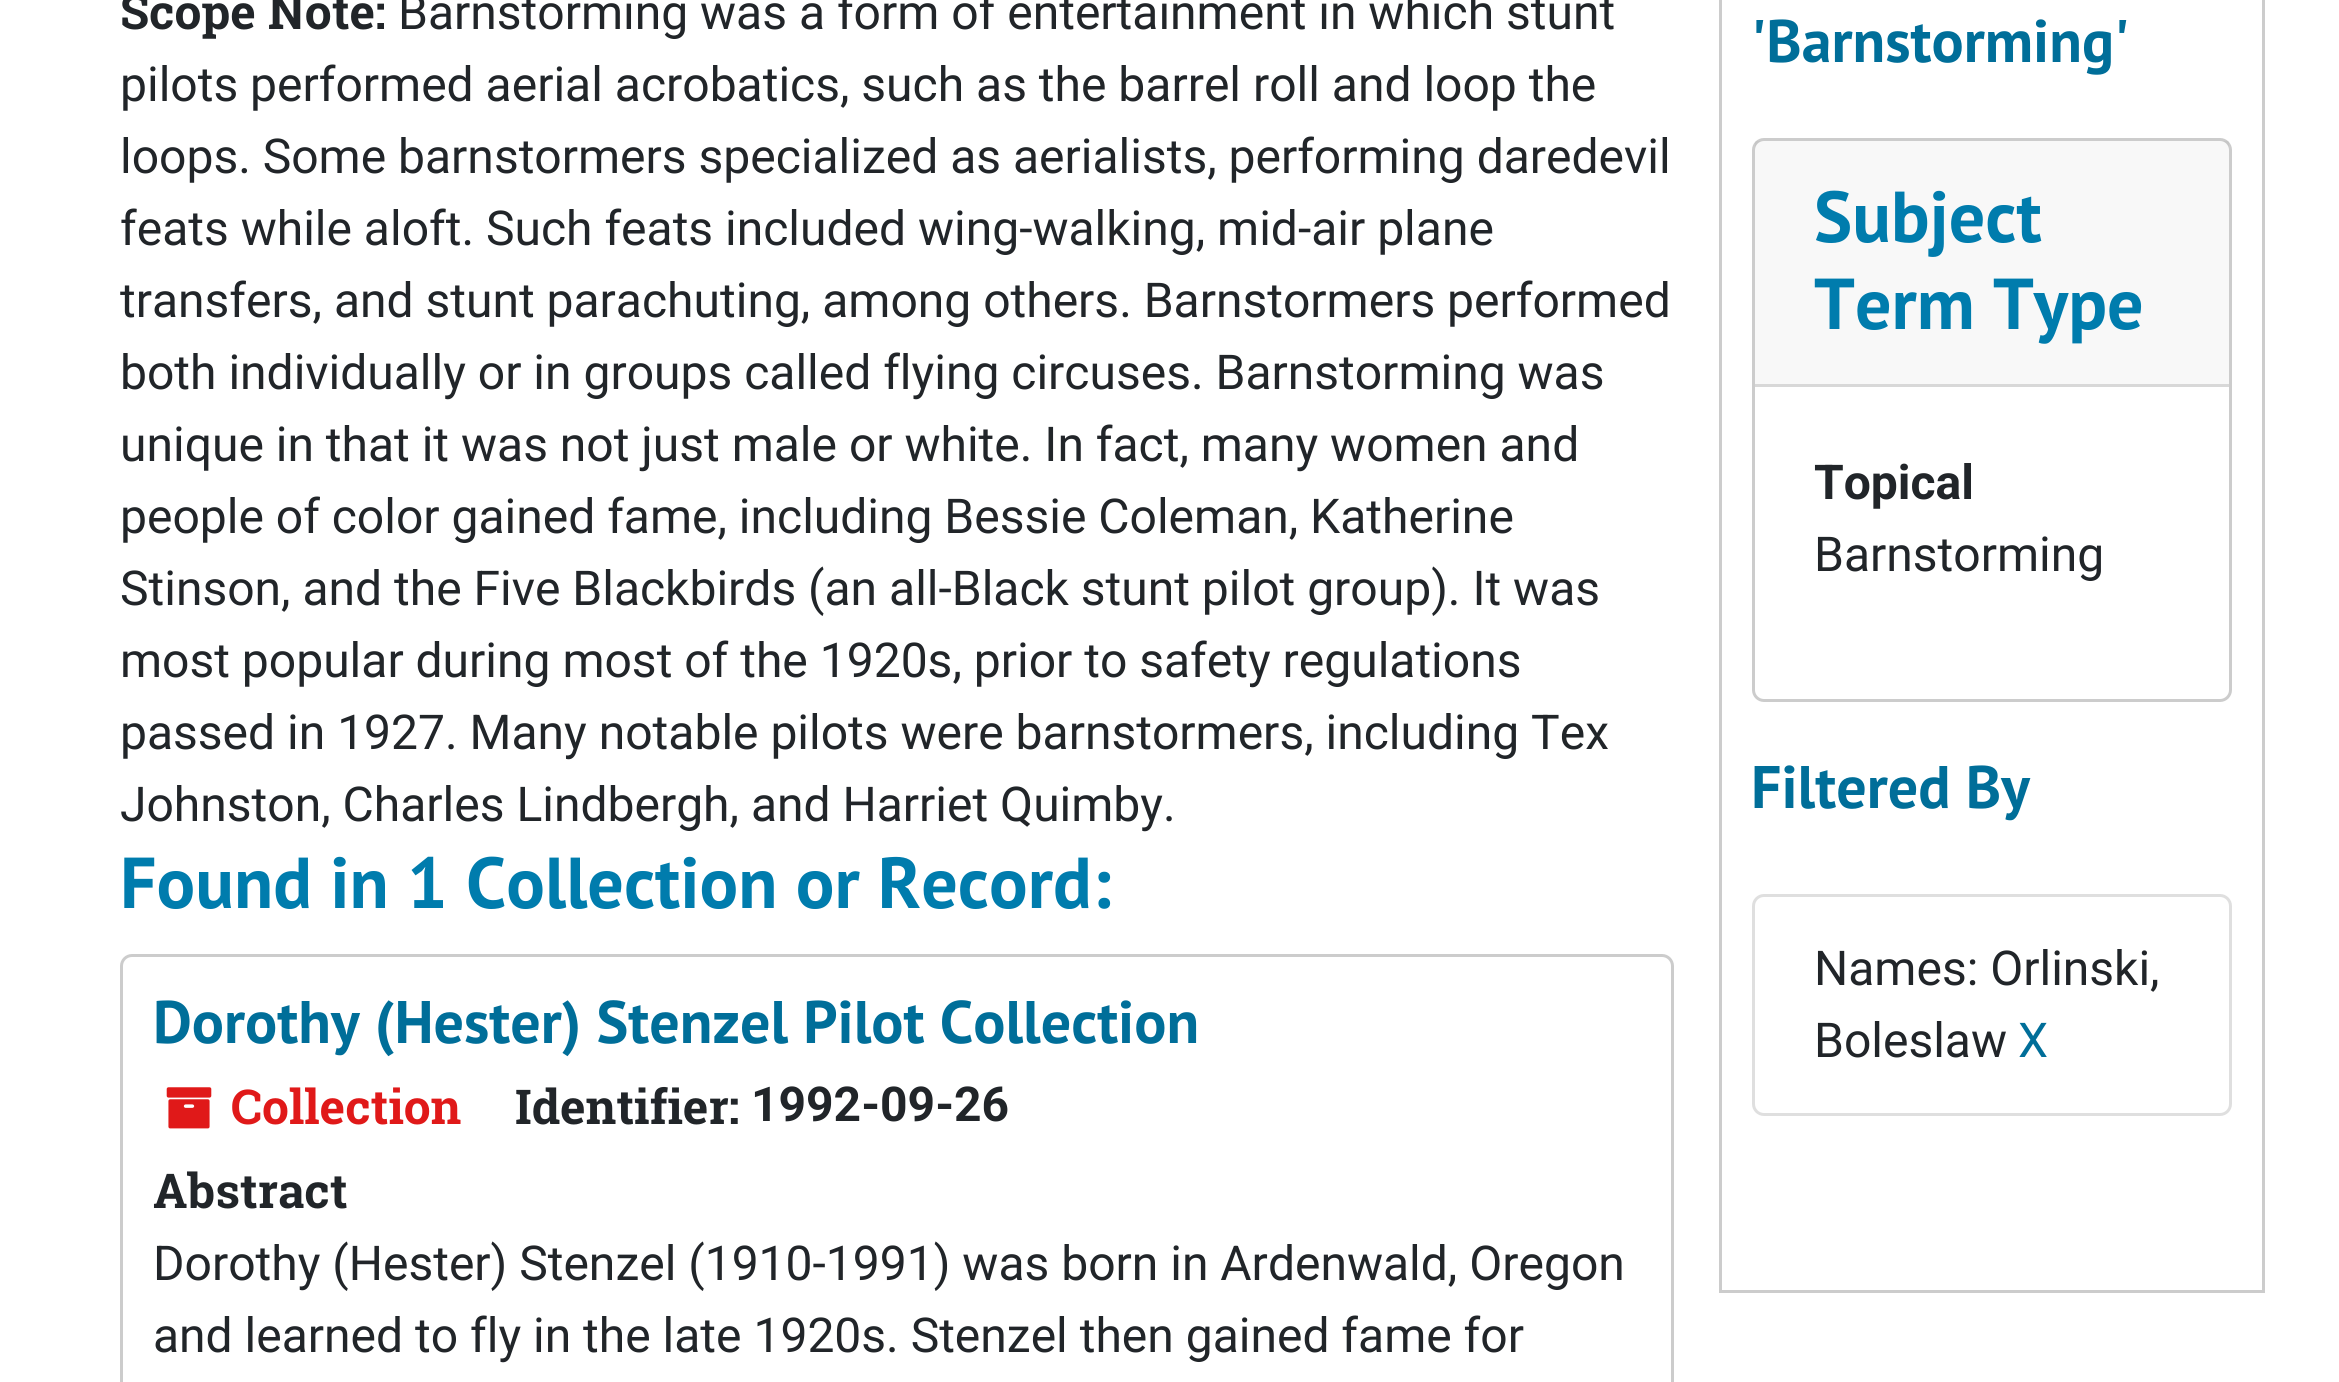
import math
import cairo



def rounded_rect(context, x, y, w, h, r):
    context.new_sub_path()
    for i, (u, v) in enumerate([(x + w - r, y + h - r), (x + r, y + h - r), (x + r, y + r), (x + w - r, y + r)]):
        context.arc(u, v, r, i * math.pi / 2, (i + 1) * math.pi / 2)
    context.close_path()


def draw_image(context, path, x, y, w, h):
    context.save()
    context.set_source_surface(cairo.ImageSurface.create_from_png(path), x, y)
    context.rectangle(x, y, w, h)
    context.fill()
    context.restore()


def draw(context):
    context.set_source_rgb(1, 1, 1)
    context.paint()
    rounded_rect(context, 121.5, 955.5, 1551, 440, 10.5)
    context.set_source_rgb(204 / 255, 204 / 255, 204 / 255)
    context.set_line_width(3)
    context.stroke()
    draw_image(context, "images/1.png", 166, 1087, 46, 42)
    context.rectangle(1720.5, -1.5, 543, 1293)
    context.stroke()
    rounded_rect(context, 1753.5, 139.5, 477, 561, 10.5)
    context.stroke()
    context.set_source_rgba(0, 0, 0, 0.03)
    context.rectangle(1755, 141, 474, 243)
    context.fill()
    context.set_source_rgb(216 / 255, 216 / 255, 216 / 255)
    context.rectangle(1755, 384, 474, 3)
    context.fill()
    rounded_rect(context, 1753.5, 895.5, 477, 219, 10.5)
    context.set_source_rgb(223 / 255, 223 / 255, 223 / 255)
    context.stroke()
    context.select_font_face("Roboto Slab", cairo.FontSlant.NORMAL, cairo.FontWeight.BOLD)
    context.set_font_size(48)
    context.set_source_rgb(33 / 255, 37 / 255, 41 / 255)
    context.move_to(120, 29)
    context.show_text("Scope Note:")
    context.select_font_face("Roboto")
    context.move_to(398, 29)
    context.show_text("Barnstorming was a form of entertainment in which stunt")
    context.move_to(120, 101)
    context.show_text("pilots performed aerial acrobatics, such as the barrel roll and loop the")
    context.move_to(120, 173)
    context.show_text("loops. Some barnstormers specialized as aerialists, performing daredevil")
    context.move_to(120, 245)
    context.show_text("feats while aloft. Such feats included wing-walking, mid-air plane")
    context.move_to(120, 317)
    context.show_text("transfers, and stunt parachuting, among others. Barnstormers performed")
    context.move_to(120, 389)
    context.show_text("both individually or in groups called flying circuses. Barnstorming was")
    context.move_to(120, 461)
    context.show_text("unique in that it was not just male or white. In fact, many women and")
    context.move_to(120, 533)
    context.show_text("people of color gained fame, including Bessie Coleman, Katherine")
    context.move_to(120, 605)
    context.show_text("Stinson, and the Five Blackbirds (an all-Black stunt pilot group). It was")
    context.move_to(120, 677)
    context.show_text("most popular during most of the 1920s, prior to safety regulations")
    context.move_to(120, 749)
    context.show_text("passed in 1927. Many notable pilots were barnstormers, including Tex")
    context.move_to(120, 821)
    context.show_text("Johnston, Charles Lindbergh, and Harriet Quimby.")
    context.select_font_face("PT Sans", cairo.FontSlant.NORMAL, cairo.FontWeight.BOLD)
    context.set_font_size(72)
    context.set_source_rgb(0, 124 / 255, 173 / 255)
    context.move_to(120, 908)
    context.show_text("Found in 1 Collection or Record:")
    context.set_font_size(60)
    context.set_source_rgb(0, 110 / 255, 153 / 255)
    context.move_to(153, 1043)
    context.show_text("Dorothy (Hester) Stenzel Pilot Collection")
    context.select_font_face("Roboto Slab", cairo.FontSlant.NORMAL, cairo.FontWeight.BOLD)
    context.set_font_size(48)
    context.set_source_rgb(224 / 255, 25 / 255, 25 / 255)
    context.move_to(231, 1124)
    context.show_text("Collection")
    context.set_source_rgb(33 / 255, 37 / 255, 41 / 255)
    context.move_to(515, 1124)
    context.show_text("Identifier:")
    context.select_font_face("Roboto", cairo.FontSlant.NORMAL, cairo.FontWeight.BOLD)
    context.move_to(751, 1121)
    context.show_text("1992-09-26")
    context.select_font_face("Roboto Slab", cairo.FontSlant.NORMAL, cairo.FontWeight.BOLD)
    context.move_to(153, 1208)
    context.show_text("Abstract")
    context.select_font_face("Roboto")
    context.move_to(153, 1280)
    context.show_text("Dorothy (Hester) Stenzel (1910-1991) was born in Ardenwald, Oregon")
    context.move_to(153, 1352)
    context.show_text("and learned to fly in the late 1920s. Stenzel then gained fame for")
    context.select_font_face("PT Sans", cairo.FontSlant.NORMAL, cairo.FontWeight.BOLD)
    context.set_font_size(60)
    context.set_source_rgb(0, 110 / 255, 153 / 255)
    context.move_to(1751, 62)
    context.show_text("'Barnstorming'")
    context.set_font_size(72)
    context.set_source_rgb(0, 124 / 255, 173 / 255)
    context.move_to(1814, 242)
    context.show_text("Subject")
    context.move_to(1814, 329)
    context.show_text("Term Type")
    context.select_font_face("Roboto", cairo.FontSlant.NORMAL, cairo.FontWeight.BOLD)
    context.set_font_size(48)
    context.set_source_rgb(33 / 255, 37 / 255, 41 / 255)
    context.move_to(1814, 499)
    context.show_text("Topical")
    context.select_font_face("Roboto")
    context.move_to(1814, 571)
    context.show_text("Barnstorming")
    context.select_font_face("PT Sans", cairo.FontSlant.NORMAL, cairo.FontWeight.BOLD)
    context.set_font_size(60)
    context.set_source_rgb(0, 110 / 255, 153 / 255)
    context.move_to(1751, 808)
    context.show_text("Filtered By")
    context.select_font_face("Roboto")
    context.set_font_size(48)
    context.set_source_rgb(33 / 255, 37 / 255, 41 / 255)
    context.move_to(1814, 985)
    context.show_text("Names: Orlinski,")
    context.move_to(1814, 1057)
    context.show_text("Boleslaw")
    context.set_source_rgb(0, 110 / 255, 153 / 255)
    context.move_to(2018, 1057)
    context.show_text("X")


surface = cairo.ImageSurface(cairo.Format.RGB24, 2339, 1382)
context = cairo.Context(surface)
options = cairo.FontOptions()
options.set_hint_metrics(cairo.HintMetrics.OFF)
options.set_hint_style(cairo.HintStyle.NONE)
context.set_font_options(options)
context.set_miter_limit(4)
draw(context)
surface.write_to_png("out.png")
